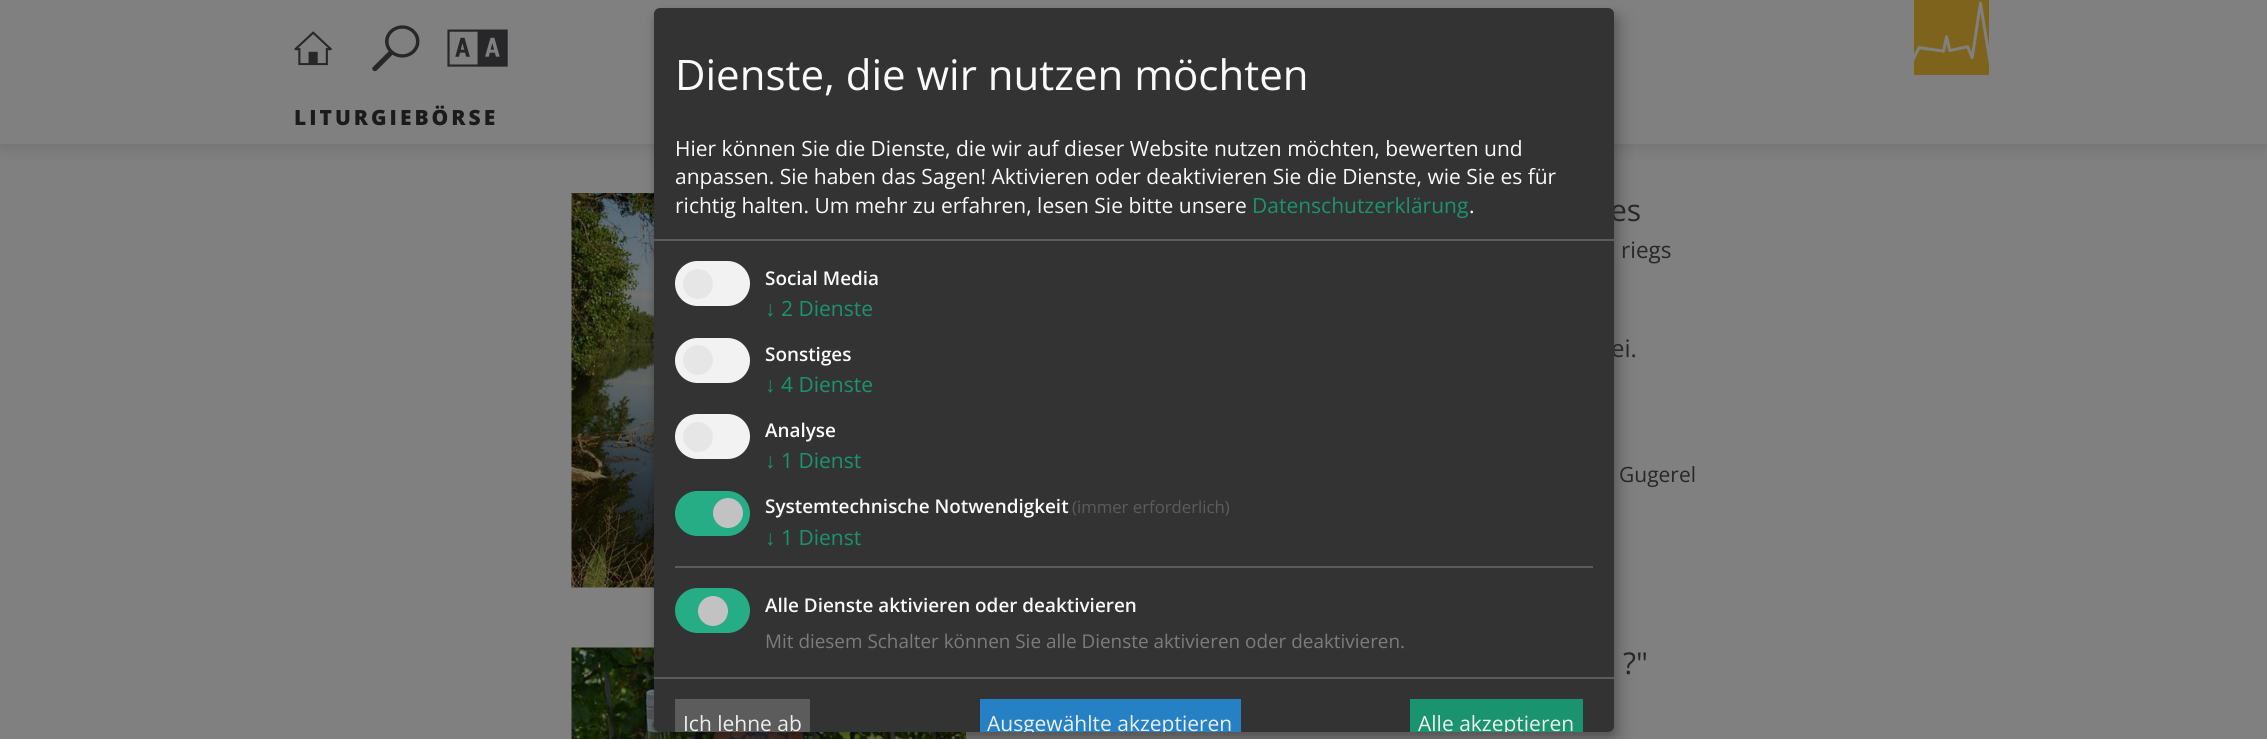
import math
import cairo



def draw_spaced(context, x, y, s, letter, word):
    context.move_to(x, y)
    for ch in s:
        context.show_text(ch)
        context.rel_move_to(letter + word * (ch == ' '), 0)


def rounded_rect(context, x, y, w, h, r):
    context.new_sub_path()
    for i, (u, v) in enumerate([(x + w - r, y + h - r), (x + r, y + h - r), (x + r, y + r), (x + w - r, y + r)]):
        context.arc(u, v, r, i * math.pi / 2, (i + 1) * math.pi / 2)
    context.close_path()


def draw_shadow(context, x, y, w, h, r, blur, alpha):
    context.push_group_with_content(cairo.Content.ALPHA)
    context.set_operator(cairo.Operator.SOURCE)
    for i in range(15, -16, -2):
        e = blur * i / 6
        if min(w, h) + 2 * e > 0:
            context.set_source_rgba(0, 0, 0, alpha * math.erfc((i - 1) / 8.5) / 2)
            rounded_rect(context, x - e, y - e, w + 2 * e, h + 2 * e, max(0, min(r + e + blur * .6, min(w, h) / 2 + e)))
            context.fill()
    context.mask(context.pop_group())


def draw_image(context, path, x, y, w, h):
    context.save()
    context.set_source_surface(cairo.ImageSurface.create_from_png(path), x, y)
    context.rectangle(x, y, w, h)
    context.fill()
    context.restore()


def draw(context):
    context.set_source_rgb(128 / 255, 128 / 255, 128 / 255)
    context.paint()
    context.set_source_rgb(0, 0, 0)
    draw_shadow(context, 0, 0, 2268, 144, 0, 10, 0.15)
    context.set_source_rgb(128 / 255, 128 / 255, 128 / 255)
    context.rectangle(0, 0, 2267, 144)
    context.fill()
    draw_image(context, "images/5.png", 571, 193, 83, 395)
    draw_image(context, "images/6.png", 571, 647, 395, 92)
    context.set_source_rgb(0, 0, 0)
    draw_shadow(context, 662, 15, 960, 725, 6, 7.5, 0.19)
    draw_shadow(context, 654, 14, 960, 724, 6, 4.5, 0.2)
    draw_image(context, "images/1.png", 294, 31, 38, 35)
    draw_image(context, "images/2.png", 372, 25, 48, 47)
    draw_image(context, "images/3.png", 447, 29, 61, 38)
    draw_image(context, "images/4.png", 1914, 0, 75, 75)
    context.select_font_face("Open Sans ExtraBold")
    context.set_font_size(21)
    context.set_source_rgb(27 / 255, 27 / 255, 28 / 255)
    draw_spaced(context, 294, 125, "LITURGIEBÖRSE", 3, 0)
    context.select_font_face("Open Sans")
    context.set_font_size(30)
    context.set_source_rgb(39 / 255, 39 / 255, 41 / 255)
    context.move_to(1610, 221)
    context.show_text("es")
    context.set_font_size(22.5)
    context.move_to(1621, 258)
    context.show_text("riegs")
    context.set_font_size(24)
    context.move_to(1611, 357)
    context.show_text("ei.")
    context.set_source_rgb(51 / 255, 51 / 255, 51 / 255)
    rounded_rect(context, 654, 8, 960, 724, 6)
    context.fill()
    context.set_source_rgb(39 / 255, 173 / 255, 133 / 255)
    rounded_rect(context, 675, 588, 75, 45, 22.5)
    context.fill()
    context.set_source_rgb(194 / 255, 194 / 255, 194 / 255)
    context.arc(713, 611, 15, 0, 2 * math.pi)
    context.fill()
    context.set_font_size(18.9)
    context.set_source_rgb(124 / 255, 124 / 255, 124 / 255)
    context.move_to(765, 648)
    context.show_text("Mit diesem Schalter können Sie alle Dienste aktivieren oder deaktivieren.")
    context.select_font_face("Open Sans SemiBold")
    context.set_source_rgb(250 / 255, 250 / 255, 250 / 255)
    context.move_to(765, 612)
    context.show_text("Alle Dienste aktivieren oder deaktivieren")
    context.set_source_rgb(92 / 255, 92 / 255, 92 / 255)
    context.rectangle(675, 566, 918, 2)
    context.fill()
    context.set_source_rgb(39 / 255, 173 / 255, 133 / 255)
    rounded_rect(context, 675, 491, 75, 45, 22.5)
    context.fill()
    context.set_source_rgb(194 / 255, 194 / 255, 194 / 255)
    context.arc(728, 513, 15, 0, 2 * math.pi)
    context.fill()
    context.select_font_face("Open Sans")
    context.set_font_size(21)
    context.set_source_rgb(26 / 255, 147 / 255, 111 / 255)
    context.move_to(781, 545)
    context.show_text("1 Dienst")
    context.select_font_face("Liberation Sans")
    context.move_to(765, 545)
    context.show_text("↓")
    context.select_font_face("Open Sans")
    context.set_font_size(16.75)
    context.set_source_rgb(92 / 255, 92 / 255, 92 / 255)
    context.move_to(1072, 513)
    context.show_text("(immer erforderlich)")
    context.select_font_face("Open Sans SemiBold")
    context.set_font_size(18.9)
    context.set_source_rgb(250 / 255, 250 / 255, 250 / 255)
    context.move_to(765, 513)
    context.show_text("Systemtechnische Notwendigkeit")
    context.set_source_rgb(242 / 255, 242 / 255, 242 / 255)
    rounded_rect(context, 675, 414, 75, 45, 22.5)
    context.fill()
    context.set_source_rgb(230 / 255, 230 / 255, 230 / 255)
    context.arc(698, 437, 15, 0, 2 * math.pi)
    context.fill()
    context.select_font_face("Open Sans")
    context.set_font_size(21)
    context.set_source_rgb(26 / 255, 147 / 255, 111 / 255)
    context.move_to(781, 468)
    context.show_text("1 Dienst")
    context.select_font_face("Liberation Sans")
    context.move_to(765, 468)
    context.show_text("↓")
    context.select_font_face("Open Sans SemiBold")
    context.set_font_size(18.9)
    context.set_source_rgb(250 / 255, 250 / 255, 250 / 255)
    context.move_to(765, 437)
    context.show_text("Analyse")
    context.set_source_rgb(242 / 255, 242 / 255, 242 / 255)
    rounded_rect(context, 675, 338, 75, 45, 22.5)
    context.fill()
    context.set_source_rgb(230 / 255, 230 / 255, 230 / 255)
    context.arc(698, 360, 15, 0, 2 * math.pi)
    context.fill()
    context.select_font_face("Open Sans")
    context.set_font_size(21)
    context.set_source_rgb(26 / 255, 147 / 255, 111 / 255)
    context.move_to(781, 392)
    context.show_text("4 Dienste")
    context.select_font_face("Liberation Sans")
    context.move_to(765, 392)
    context.show_text("↓")
    context.select_font_face("Open Sans SemiBold")
    context.set_font_size(18.9)
    context.set_source_rgb(250 / 255, 250 / 255, 250 / 255)
    context.move_to(765, 361)
    context.show_text("Sonstiges")
    context.set_source_rgb(242 / 255, 242 / 255, 242 / 255)
    rounded_rect(context, 675, 261, 75, 45, 22.5)
    context.fill()
    context.set_source_rgb(230 / 255, 230 / 255, 230 / 255)
    context.arc(698, 284, 15, 0, 2 * math.pi)
    context.fill()
    context.select_font_face("Open Sans")
    context.set_font_size(21)
    context.set_source_rgb(26 / 255, 147 / 255, 111 / 255)
    context.move_to(781, 316)
    context.show_text("2 Dienste")
    context.select_font_face("Liberation Sans")
    context.move_to(765, 316)
    context.show_text("↓")
    context.select_font_face("Open Sans SemiBold")
    context.set_font_size(18.9)
    context.set_source_rgb(250 / 255, 250 / 255, 250 / 255)
    context.move_to(765, 285)
    context.show_text("Social Media")
    context.set_source_rgb(26 / 255, 147 / 255, 111 / 255)
    context.rectangle(1410, 699, 173, 33)
    context.fill()
    context.save()
    rounded_rect(context, 654, 8, 960, 724, 6)
    context.clip()
    context.select_font_face("Open Sans")
    context.set_font_size(21)
    context.set_source_rgb(238 / 255, 238 / 255, 238 / 255)
    context.move_to(1418, 731)
    context.show_text("Alle akzeptieren")
    context.restore()
    context.set_source_rgb(37 / 255, 129 / 255, 196 / 255)
    context.rectangle(980, 699, 261, 33)
    context.fill()
    context.save()
    rounded_rect(context, 654, 8, 960, 724, 6)
    context.clip()
    context.select_font_face("Open Sans")
    context.set_font_size(21)
    context.set_source_rgb(238 / 255, 238 / 255, 238 / 255)
    context.move_to(987, 731)
    context.show_text("Ausgewählte akzeptieren")
    context.restore()
    context.set_source_rgb(92 / 255, 92 / 255, 92 / 255)
    context.rectangle(675, 699, 135, 33)
    context.fill()
    context.select_font_face("Open Sans")
    context.set_font_size(21)
    context.set_source_rgb(238 / 255, 238 / 255, 238 / 255)
    context.move_to(683, 731)
    context.show_text("Ich lehne ab")
    context.set_source_rgb(250 / 255, 250 / 255, 250 / 255)
    context.move_to(1469, 213)
    context.show_text(".")
    context.set_source_rgb(26 / 255, 147 / 255, 111 / 255)
    context.move_to(1252, 213)
    context.show_text("Datenschutzerklärung")
    context.set_source_rgb(250 / 255, 250 / 255, 250 / 255)
    context.move_to(675, 213)
    context.show_text("richtig halten. Um mehr zu erfahren, lesen Sie bitte unsere")
    context.move_to(675, 184)
    context.show_text("anpassen. Sie haben das Sagen! Aktivieren oder deaktivieren Sie die Dienste, wie Sie es für")
    context.move_to(675, 156)
    context.show_text("Hier können Sie die Dienste, die wir auf dieser Website nutzen möchten, bewerten und")
    context.set_font_size(42)
    context.move_to(675, 90)
    context.show_text("Dienste, die wir nutzen möchten")
    context.set_source_rgb(92 / 255, 92 / 255, 92 / 255)
    context.rectangle(654, 677, 960, 2)
    context.fill()
    context.rectangle(654, 239, 960, 2)
    context.fill()
    context.set_font_size(21)
    context.set_source_rgb(39 / 255, 39 / 255, 41 / 255)
    context.move_to(1619, 482)
    context.show_text("Gugerel")
    context.set_font_size(30)
    context.move_to(1623, 674)
    context.show_text("?\"")


surface = cairo.ImageSurface(cairo.Format.RGB24, 2267, 739)
context = cairo.Context(surface)
options = cairo.FontOptions()
options.set_hint_metrics(cairo.HintMetrics.OFF)
options.set_hint_style(cairo.HintStyle.NONE)
context.set_font_options(options)
context.set_miter_limit(4)
draw(context)
surface.write_to_png("out.png")
